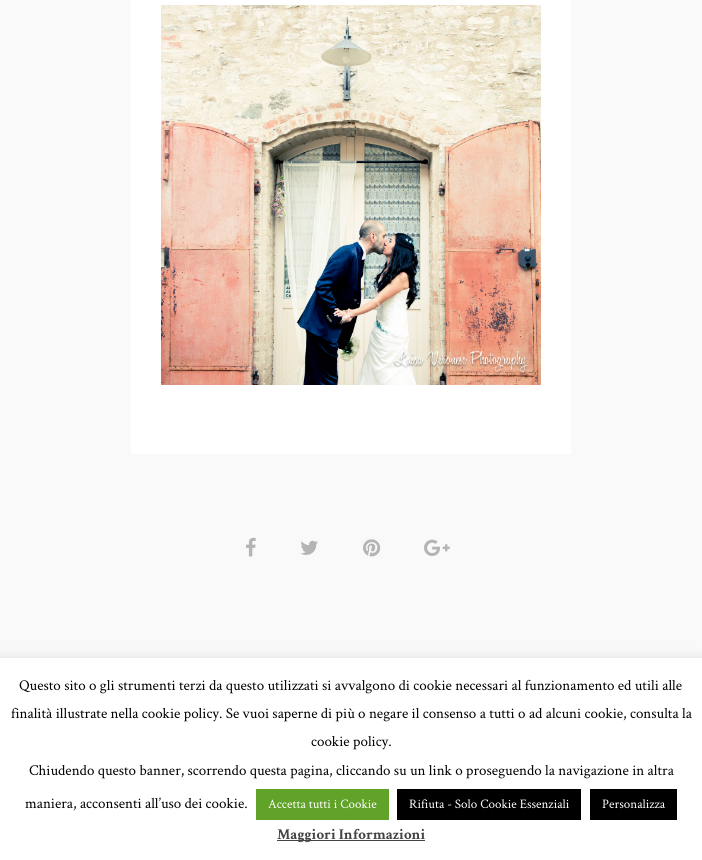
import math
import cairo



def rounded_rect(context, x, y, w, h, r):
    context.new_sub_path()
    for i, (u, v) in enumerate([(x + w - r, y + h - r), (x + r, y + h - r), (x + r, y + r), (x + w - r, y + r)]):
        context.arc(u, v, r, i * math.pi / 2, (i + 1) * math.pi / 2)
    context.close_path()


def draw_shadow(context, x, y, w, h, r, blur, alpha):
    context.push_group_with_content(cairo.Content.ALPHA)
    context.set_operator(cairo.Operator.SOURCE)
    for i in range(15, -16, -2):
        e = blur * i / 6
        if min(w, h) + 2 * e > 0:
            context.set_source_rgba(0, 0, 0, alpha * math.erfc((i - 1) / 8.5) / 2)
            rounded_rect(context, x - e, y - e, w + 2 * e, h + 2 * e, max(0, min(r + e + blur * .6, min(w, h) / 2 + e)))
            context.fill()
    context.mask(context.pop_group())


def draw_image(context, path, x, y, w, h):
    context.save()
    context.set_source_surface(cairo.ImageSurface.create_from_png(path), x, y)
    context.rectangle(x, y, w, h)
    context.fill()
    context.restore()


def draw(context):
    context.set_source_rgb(249 / 255, 249 / 255, 249 / 255)
    context.paint()
    context.set_source_rgb(1, 1, 1)
    context.rectangle(131, 0, 440, 454)
    context.fill()
    draw_image(context, "images/1.png", 161, 5, 380, 380)
    draw_image(context, "images/2.png", 246, 537, 10, 20)
    draw_image(context, "images/3.png", 300, 540, 18, 15)
    draw_image(context, "images/4.png", 363, 539, 18, 18)
    draw_image(context, "images/5.png", 424, 539, 26, 17)
    context.set_source_rgb(172 / 255, 171 / 255, 171 / 255)
    draw_shadow(context, 0, 657, 702, 202, 0, 5, 0.3)
    context.set_source_rgb(1, 1, 1)
    context.rectangle(0, 658, 702, 202)
    context.fill()
    context.set_source_rgb(97 / 255, 162 / 255, 41 / 255)
    context.rectangle(256, 789, 133, 31)
    context.fill()
    context.set_source_rgb(0, 0, 0)
    context.rectangle(397, 789, 184, 31)
    context.fill()
    context.rectangle(590, 789, 87, 31)
    context.fill()
    context.set_source_rgb(68 / 255, 68 / 255, 68 / 255)
    context.rectangle(277, 840, 148, 1)
    context.fill()
    context.select_font_face("Crimson Text")
    context.set_font_size(15)
    context.set_source_rgb(0, 0, 0)
    context.move_to(19, 690)
    context.show_text("Questo sito o gli strumenti terzi da questo utilizzati si avvalgono di cookie necessari al funzionamento ed utili alle")
    context.move_to(11, 718)
    context.show_text("finalità illustrate nella cookie policy. Se vuoi saperne di più o negare il consenso a tutti o ad alcuni cookie, consulta la")
    context.move_to(311, 746)
    context.show_text("cookie policy.")
    context.move_to(29, 775)
    context.show_text("Chiudendo questo banner, scorrendo questa pagina, cliccando su un link o proseguendo la navigazione in altra")
    context.move_to(25, 808)
    context.show_text("maniera, acconsenti all’uso dei cookie.")
    context.set_font_size(13)
    context.set_source_rgb(1, 1, 1)
    context.move_to(268, 808)
    context.show_text("Accetta tutti i Cookie")
    context.move_to(409, 808)
    context.show_text("Rifiuta - Solo Cookie Essenziali")
    context.move_to(602, 808)
    context.show_text("Personalizza")
    context.select_font_face("Crimson Text", cairo.FontSlant.NORMAL, cairo.FontWeight.BOLD)
    context.set_font_size(15)
    context.set_source_rgb(68 / 255, 68 / 255, 68 / 255)
    context.move_to(277, 839)
    context.show_text("Maggiori Informazioni")


surface = cairo.ImageSurface(cairo.Format.RGB24, 702, 860)
context = cairo.Context(surface)
options = cairo.FontOptions()
options.set_hint_metrics(cairo.HintMetrics.OFF)
options.set_hint_style(cairo.HintStyle.NONE)
context.set_font_options(options)
context.set_miter_limit(4)
draw(context)
surface.write_to_png("out.png")
